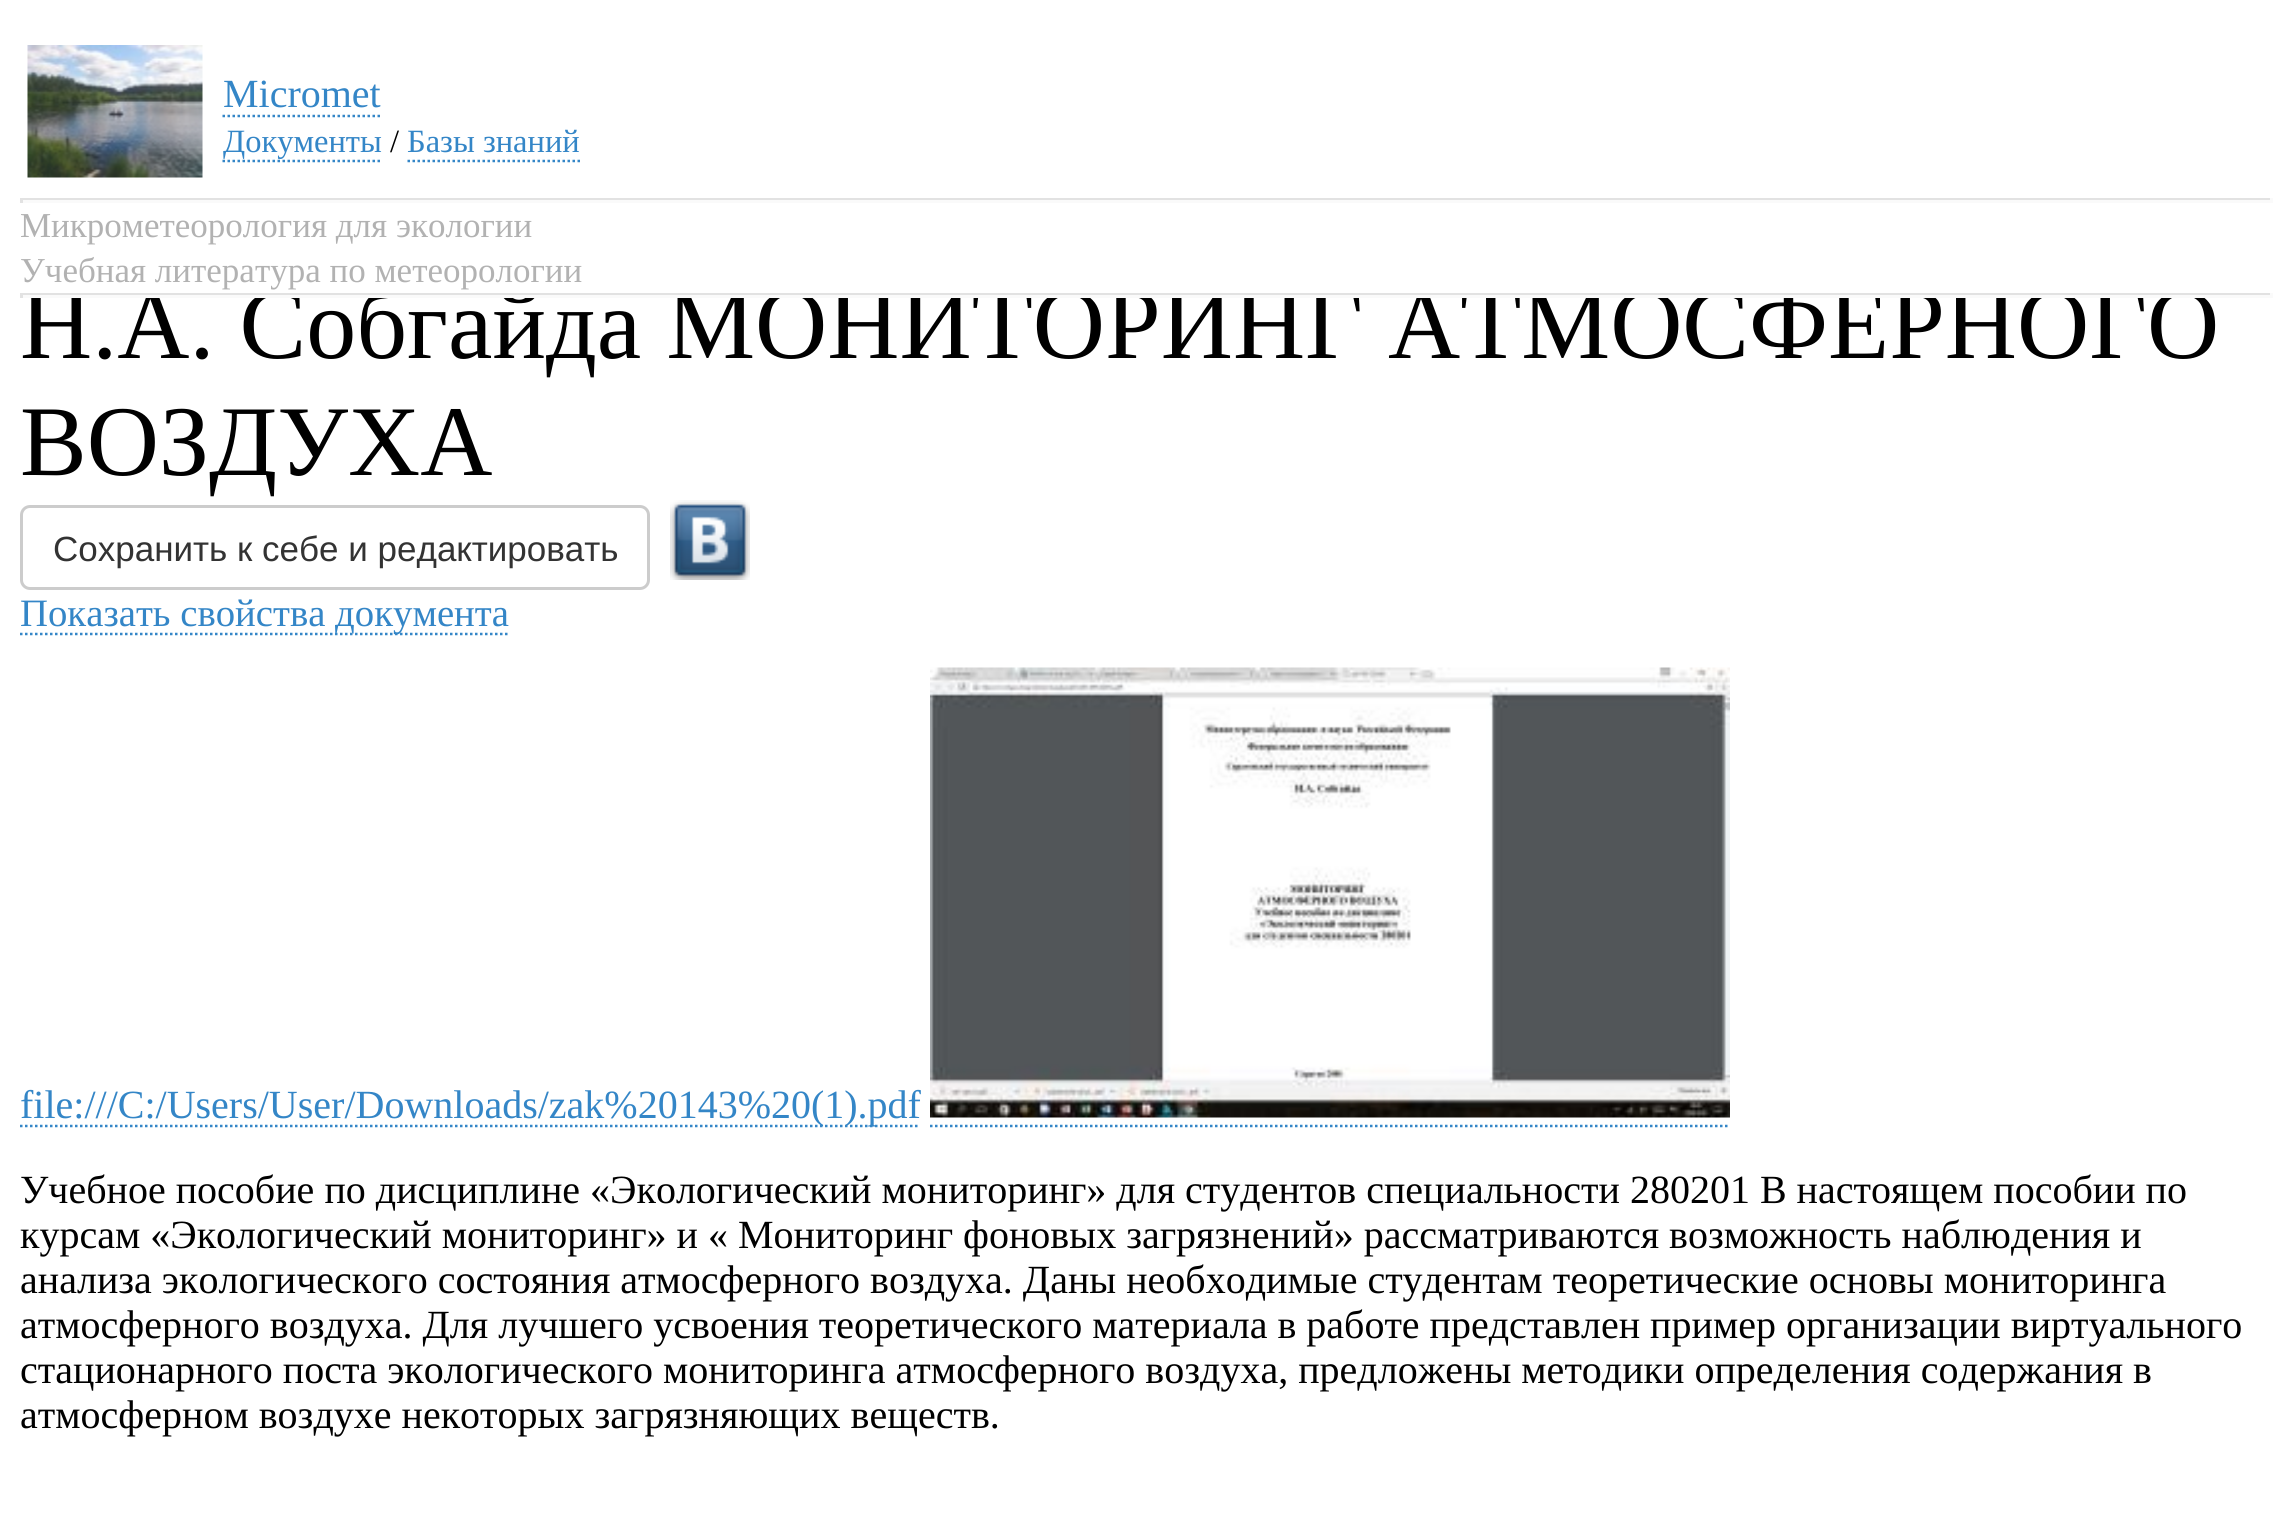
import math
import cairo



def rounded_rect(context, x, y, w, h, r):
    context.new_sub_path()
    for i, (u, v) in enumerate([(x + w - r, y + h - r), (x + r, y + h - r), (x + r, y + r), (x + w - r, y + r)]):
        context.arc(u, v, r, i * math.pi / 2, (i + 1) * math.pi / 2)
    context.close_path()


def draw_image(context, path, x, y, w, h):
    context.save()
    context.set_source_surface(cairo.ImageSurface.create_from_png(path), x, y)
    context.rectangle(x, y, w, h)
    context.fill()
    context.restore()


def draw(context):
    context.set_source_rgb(1, 1, 1)
    context.paint()
    draw_image(context, "images/1.png", 27, 45, 176, 133)
    context.new_path()
    context.move_to(222.5, 116)
    context.line_to(380, 116)
    context.set_source_rgb(52 / 255, 134 / 255, 199 / 255)
    context.set_line_width(2.5)
    context.set_dash([2.5, 2.5])
    context.stroke()
    context.new_path()
    context.move_to(222.5, 161)
    context.line_to(382.5, 161)
    context.stroke()
    context.new_path()
    context.move_to(407.5, 161)
    context.line_to(580, 161)
    context.stroke()
    context.set_source_rgb(226 / 255, 226 / 255, 226 / 255)
    context.rectangle(20, 198, 2253, 2)
    context.fill()
    context.set_source_rgb(250 / 255, 250 / 255, 250 / 255)
    context.rectangle(2270, 198, 3, 5)
    context.fill()
    context.rectangle(20, 200, 2253, 3)
    context.fill()
    context.set_source_rgb(226 / 255, 226 / 255, 226 / 255)
    context.rectangle(20, 198, 3, 5)
    context.fill()
    rounded_rect(context, 21.5, 506.5, 627, 82, 8.5)
    context.set_source_rgb(204 / 255, 204 / 255, 204 / 255)
    context.set_line_width(3)
    context.set_dash([])
    context.stroke()
    draw_image(context, "images/2.png", 670, 500, 80, 80)
    context.new_path()
    context.move_to(20, 634)
    context.line_to(510, 634)
    context.set_source_rgb(52 / 255, 134 / 255, 199 / 255)
    context.set_line_width(2.5)
    context.set_dash([2.5, 2.5])
    context.stroke()
    context.new_path()
    context.move_to(20, 1126)
    context.line_to(920, 1126)
    context.stroke()
    draw_image(context, "images/3.png", 930, 667, 800, 451)
    context.new_path()
    context.move_to(930, 1126)
    context.line_to(1730, 1126)
    context.stroke()
    context.select_font_face("Liberation Serif")
    context.set_font_size(40)
    context.move_to(223, 107)
    context.show_text("Micromet")
    context.set_font_size(32.5)
    context.move_to(223, 152)
    context.show_text("Документы")
    context.set_source_rgb(0, 0, 0)
    context.move_to(390, 152)
    context.show_text("/")
    context.set_source_rgb(52 / 255, 134 / 255, 199 / 255)
    context.move_to(407, 152)
    context.show_text("Базы знаний")
    context.set_font_size(35)
    context.set_source_rgb(178 / 255, 178 / 255, 178 / 255)
    context.move_to(20, 237)
    context.show_text("Микрометеорология для экологии")
    context.set_font_size(100)
    context.set_source_rgb(0, 0, 0)
    context.move_to(20, 358)
    context.show_text("Н.А. Собгайда МОНИТОРИНГ АТМОСФЕРНОГО")
    context.set_source_rgb(226 / 255, 226 / 255, 226 / 255)
    context.rectangle(20, 293, 2253, 2)
    context.fill()
    context.set_source_rgb(250 / 255, 250 / 255, 250 / 255)
    context.rectangle(2270, 293, 3, 5)
    context.fill()
    context.rectangle(20, 295, 2253, 3)
    context.fill()
    context.set_source_rgb(226 / 255, 226 / 255, 226 / 255)
    context.rectangle(20, 293, 3, 5)
    context.fill()
    context.set_source_rgb(1, 1, 1)
    context.rectangle(22, 286, 2172, 7)
    context.fill()
    context.set_font_size(35)
    context.set_source_rgb(178 / 255, 178 / 255, 178 / 255)
    context.move_to(20, 282)
    context.show_text("Учебная литература по метеорологии")
    context.set_font_size(100)
    context.set_source_rgb(0, 0, 0)
    context.move_to(20, 475)
    context.show_text("ВОЗДУХА")
    context.select_font_face("Liberation Sans")
    context.set_font_size(35)
    context.set_source_rgb(51 / 255, 51 / 255, 51 / 255)
    context.move_to(53, 561)
    context.show_text("Сохранить к себе и редактировать")
    context.select_font_face("Liberation Serif")
    context.set_font_size(38.75)
    context.set_source_rgb(52 / 255, 134 / 255, 199 / 255)
    context.move_to(20, 626)
    context.show_text("Показать свойства документа")
    context.set_font_size(40)
    context.move_to(20, 1118)
    context.show_text("file:///C:/Users/User/Downloads/zak%20143%20(1).pdf")
    context.set_source_rgb(0, 0, 0)
    context.move_to(20, 1203)
    context.show_text("Учебное пособие по дисциплине «Экологический мониторинг» для студентов специальности 280201 В настоящем пособии по")
    context.move_to(20, 1248)
    context.show_text("курсам «Экологический мониторинг» и « Мониторинг фоновых загрязнений» рассматриваются возможность наблюдения и")
    context.move_to(20, 1293)
    context.show_text("анализа экологического состояния атмосферного воздуха. Даны необходимые студентам теоретические основы мониторинга")
    context.move_to(20, 1338)
    context.show_text("атмосферного воздуха. Для лучшего усвоения теоретического материала в работе представлен пример организации виртуального")
    context.move_to(20, 1383)
    context.show_text("стационарного поста экологического мониторинга атмосферного воздуха, предложены методики определения содержания в")
    context.move_to(20, 1428)
    context.show_text("атмосферном воздухе некоторых загрязняющих веществ.")


surface = cairo.ImageSurface(cairo.Format.RGB24, 2291, 1537)
context = cairo.Context(surface)
options = cairo.FontOptions()
options.set_hint_metrics(cairo.HintMetrics.OFF)
options.set_hint_style(cairo.HintStyle.NONE)
context.set_font_options(options)
context.set_miter_limit(4)
draw(context)
surface.write_to_png("out.png")
